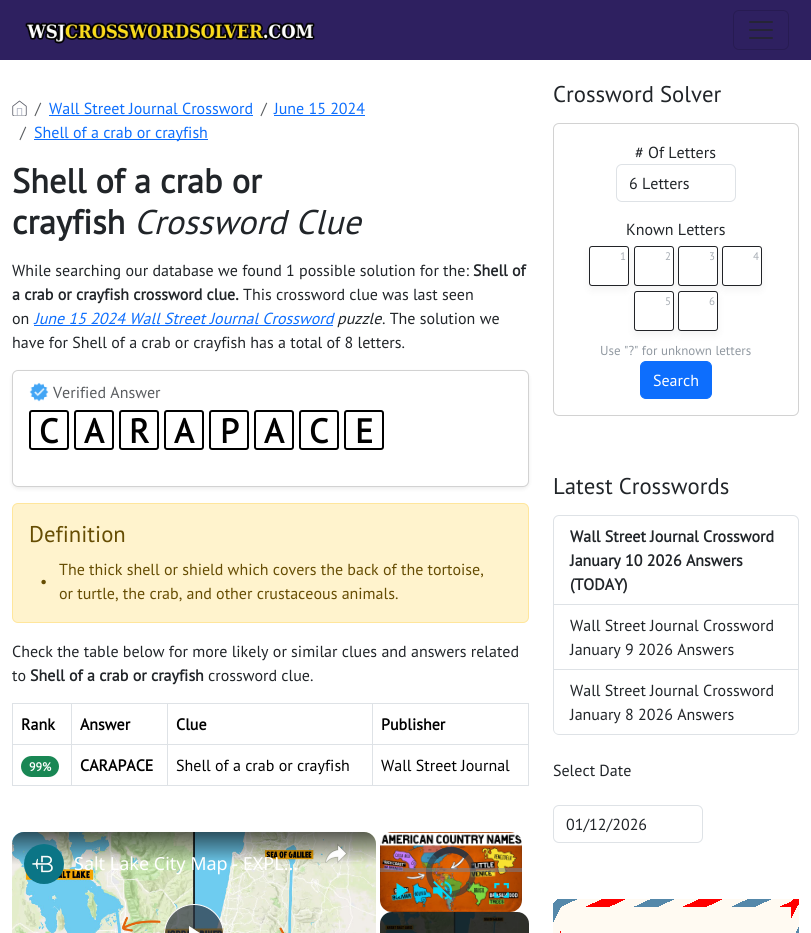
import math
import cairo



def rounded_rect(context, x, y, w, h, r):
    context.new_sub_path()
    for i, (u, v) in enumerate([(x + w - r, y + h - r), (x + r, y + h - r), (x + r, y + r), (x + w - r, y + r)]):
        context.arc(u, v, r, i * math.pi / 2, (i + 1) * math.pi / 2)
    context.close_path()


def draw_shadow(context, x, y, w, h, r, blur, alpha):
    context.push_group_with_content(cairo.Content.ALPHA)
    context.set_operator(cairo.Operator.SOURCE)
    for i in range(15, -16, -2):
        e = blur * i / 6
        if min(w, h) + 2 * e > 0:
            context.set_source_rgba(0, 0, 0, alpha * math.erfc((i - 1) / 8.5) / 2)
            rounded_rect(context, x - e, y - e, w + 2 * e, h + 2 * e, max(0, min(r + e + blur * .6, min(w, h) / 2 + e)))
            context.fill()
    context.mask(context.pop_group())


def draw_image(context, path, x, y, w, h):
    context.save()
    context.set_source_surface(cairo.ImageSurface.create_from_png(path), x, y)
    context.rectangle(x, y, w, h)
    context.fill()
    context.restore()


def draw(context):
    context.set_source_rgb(1, 1, 1)
    context.paint()
    context.set_source_rgb(46 / 255, 32 / 255, 96 / 255)
    context.rectangle(0, 0, 811, 60)
    context.fill()
    draw_image(context, "images/1.png", 25, 22, 290, 22)
    rounded_rect(context, 733.5, 10.5, 55, 39, 5.5)
    context.set_source_rgb(39 / 255, 27 / 255, 82 / 255)
    context.set_line_width(1)
    context.stroke()
    draw_image(context, "images/2.png", 749, 21, 24, 18)
    draw_image(context, "images/3.png", 12, 100, 15, 16)
    context.set_source_rgb(13 / 255, 110 / 255, 253 / 255)
    context.rectangle(49, 115, 204, 1)
    context.fill()
    context.rectangle(274, 115, 91, 1)
    context.fill()
    context.rectangle(34, 139, 174, 1)
    context.fill()
    context.rectangle(34, 325, 299, 1)
    context.fill()
    context.set_source_rgb(0, 0, 0)
    draw_shadow(context, 12, 372, 517, 117, 6, 2, 0.07)
    context.set_source_rgb(1, 1, 1)
    rounded_rect(context, 12.5, 370.5, 516, 116, 5.5)
    context.fill_preserve()
    context.set_source_rgb(210 / 255, 210 / 255, 210 / 255)
    context.stroke()
    draw_image(context, "images/4.png", 29, 382, 20, 20)
    rounded_rect(context, 30, 411, 38, 38, 2)
    context.set_source_rgb(0, 0, 0)
    context.set_line_width(2)
    context.stroke()
    rounded_rect(context, 75, 411, 38, 38, 2)
    context.stroke()
    rounded_rect(context, 120, 411, 38, 38, 2)
    context.stroke()
    rounded_rect(context, 165, 411, 38, 38, 2)
    context.stroke()
    rounded_rect(context, 210, 411, 38, 38, 2)
    context.stroke()
    rounded_rect(context, 255, 411, 38, 38, 2)
    context.stroke()
    rounded_rect(context, 300, 411, 38, 38, 2)
    context.stroke()
    rounded_rect(context, 345, 411, 38, 38, 2)
    context.stroke()
    context.set_source_rgb(1, 243 / 255, 205 / 255)
    rounded_rect(context, 12.5, 503.5, 516, 119, 5.5)
    context.fill_preserve()
    context.set_source_rgb(1, 230 / 255, 156 / 255)
    context.set_line_width(1)
    context.stroke()
    context.set_source_rgb(222 / 255, 226 / 255, 230 / 255)
    context.rectangle(12, 703, 517, 1)
    context.fill()
    context.rectangle(12, 744, 517, 1)
    context.fill()
    context.rectangle(12, 785, 517, 1)
    context.fill()
    context.rectangle(12, 703, 1, 83)
    context.fill()
    context.set_source_rgb(25 / 255, 135 / 255, 84 / 255)
    rounded_rect(context, 21, 756, 38, 21, 10.5)
    context.fill()
    context.set_source_rgb(222 / 255, 226 / 255, 230 / 255)
    context.rectangle(71, 703, 1, 83)
    context.fill()
    context.rectangle(167, 703, 1, 83)
    context.fill()
    context.rectangle(528, 703, 1, 83)
    context.fill()
    context.rectangle(372, 703, 1, 83)
    context.fill()
    draw_image(context, "images/5.png", 12, 832, 364, 101)
    draw_image(context, "images/6.png", 12, 832, 364, 10)
    context.set_source_rgba(43 / 255, 51 / 255, 63 / 255, 0.7)
    context.arc(194, 934, 29.5, 0, 2 * math.pi)
    context.fill_preserve()
    context.set_source_rgb(1, 1, 1)
    context.stroke()
    context.new_path()
    context.move_to(189, 926)
    context.line_to(189, 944)
    context.line_to(203, 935)
    context.close_path()
    context.fill()
    gradient = cairo.LinearGradient(194, 832, 194, 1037)
    gradient.add_color_stop_rgba(0, 0, 0, 0, 0.6)
    gradient.add_color_stop_rgba(0.16, 0, 0, 0, 0)
    gradient.add_color_stop_rgba(0.84, 0, 0, 0, 0)
    gradient.add_color_stop_rgba(1, 0, 0, 0, 0.8)
    context.set_source(gradient)
    rounded_rect(context, 12, 832, 364, 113, 12)
    context.fill()
    draw_image(context, "images/7.png", 24, 844, 40, 40)
    draw_image(context, "images/8.png", 325, 843, 23, 21)
    draw_image(context, "images/9.png", 380, 832, 142, 80)
    context.arc(451, 872, 22, 0, 2 * math.pi)
    context.set_source_rgba(43 / 255, 51 / 255, 63 / 255, 0.59)
    context.set_line_width(6)
    context.stroke()
    context.new_path()
    context.move_to(435.5, 856.5)
    context.curve_to(444, 848, 458, 848, 466.5, 856.5)
    context.stroke()
    context.new_path()
    context.move_to(435.5, 856.5)
    context.curve_to(444, 848, 458, 848, 466.5, 856.5)
    context.stroke()
    context.set_source_rgba(115 / 255, 133 / 255, 159 / 255, 0.5)
    context.rectangle(380, 868, 142, 4)
    context.fill()
    context.set_source_rgb(3 / 255, 216 / 255, 243 / 255)
    context.new_path()
    context.move_to(396.5, 883)
    context.line_to(396.5, 898)
    context.line_to(408, 890.5)
    context.close_path()
    context.fill()
    draw_image(context, "images/10.png", 433, 881, 20, 19)
    draw_image(context, "images/11.png", 494, 883, 15, 15)
    context.set_source_rgb(0, 0, 0)
    rounded_rect(context, 380, 912, 149, 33, 12)
    context.fill()
    draw_image(context, "images/12.png", 380, 912, 149, 21)
    rounded_rect(context, 553.5, 123.5, 245, 292, 5.5)
    context.set_source_rgb(210 / 255, 210 / 255, 210 / 255)
    context.set_line_width(1)
    context.stroke()
    rounded_rect(context, 616.5, 164.5, 119, 37, 5.5)
    context.set_source_rgb(222 / 255, 226 / 255, 230 / 255)
    context.stroke()
    context.set_source_rgb(0, 0, 0)
    draw_shadow(context, 589, 250, 40, 40, 3, 4, 0.05)
    context.set_source_rgb(1, 1, 1)
    rounded_rect(context, 589.5, 246.5, 39, 39, 2.5)
    context.fill_preserve()
    context.set_source_rgb(33 / 255, 35 / 255, 39 / 255)
    context.stroke()
    context.set_source_rgb(0, 0, 0)
    draw_shadow(context, 634, 250, 40, 40, 3, 4, 0.05)
    context.set_source_rgb(1, 1, 1)
    rounded_rect(context, 634.5, 246.5, 39, 39, 2.5)
    context.fill_preserve()
    context.set_source_rgb(33 / 255, 35 / 255, 39 / 255)
    context.stroke()
    context.set_source_rgb(0, 0, 0)
    draw_shadow(context, 678, 250, 40, 40, 3, 4, 0.05)
    context.set_source_rgb(1, 1, 1)
    rounded_rect(context, 678.5, 246.5, 39, 39, 2.5)
    context.fill_preserve()
    context.set_source_rgb(33 / 255, 35 / 255, 39 / 255)
    context.stroke()
    context.set_source_rgb(0, 0, 0)
    draw_shadow(context, 722, 250, 40, 40, 3, 4, 0.05)
    context.set_source_rgb(1, 1, 1)
    rounded_rect(context, 722.5, 246.5, 39, 39, 2.5)
    context.fill_preserve()
    context.set_source_rgb(33 / 255, 35 / 255, 39 / 255)
    context.stroke()
    context.set_source_rgb(0, 0, 0)
    draw_shadow(context, 634, 295, 40, 40, 3, 4, 0.05)
    context.set_source_rgb(1, 1, 1)
    rounded_rect(context, 634.5, 291.5, 39, 39, 2.5)
    context.fill_preserve()
    context.set_source_rgb(33 / 255, 35 / 255, 39 / 255)
    context.stroke()
    context.set_source_rgb(0, 0, 0)
    draw_shadow(context, 678, 295, 40, 40, 3, 4, 0.05)
    context.set_source_rgb(1, 1, 1)
    rounded_rect(context, 678.5, 291.5, 39, 39, 2.5)
    context.fill_preserve()
    context.set_source_rgb(33 / 255, 35 / 255, 39 / 255)
    context.stroke()
    context.set_source_rgb(13 / 255, 110 / 255, 253 / 255)
    rounded_rect(context, 640.5, 361.5, 71, 37, 5.5)
    context.fill_preserve()
    context.stroke()
    context.new_path()
    context.move_to(559, 515.5)
    context.line_to(793, 515.5)
    context.curve_to(796, 515.5, 798.5, 518, 798.5, 521)
    context.line_to(798.5, 604.5)
    context.line_to(553.5, 604.5)
    context.line_to(553.5, 521)
    context.curve_to(553.5, 518, 556, 515.5, 559, 515.5)
    context.close_path()
    context.set_source_rgb(222 / 255, 226 / 255, 230 / 255)
    context.stroke()
    context.rectangle(798, 605, 1, 65)
    context.fill()
    context.rectangle(553, 669, 246, 1)
    context.fill()
    context.rectangle(553, 605, 1, 65)
    context.fill()
    context.set_fill_rule(cairo.FillRule.EVEN_ODD)
    context.new_path()
    context.move_to(553, 670)
    context.line_to(799, 670)
    context.line_to(799, 729)
    context.curve_to(799, 732, 796, 735, 793, 735)
    context.line_to(559, 735)
    context.curve_to(556, 735, 553, 732, 553, 729)
    context.close_path()
    context.move_to(554, 670)
    context.line_to(798, 670)
    context.line_to(798, 729)
    context.curve_to(798, 732, 796, 734, 793, 734)
    context.line_to(559, 734)
    context.curve_to(556, 734, 554, 732, 554, 729)
    context.close_path()
    context.fill()
    rounded_rect(context, 553.5, 805.5, 149, 37, 5.5)
    context.stroke()
    context.set_source_rgb(1, 250 / 255, 242 / 255)
    rounded_rect(context, 553, 899, 246, 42, 8)
    context.fill()
    draw_image(context, "images/13.png", 553, 899, 246, 34)
    context.select_font_face("PT Sans")
    context.set_font_size(16)
    context.set_source_rgb(89 / 255, 92 / 255, 95 / 255)
    context.move_to(35, 114)
    context.show_text("/")
    context.set_source_rgb(13 / 255, 110 / 255, 253 / 255)
    context.move_to(49, 114)
    context.show_text("Wall Street Journal Crossword")
    context.set_source_rgb(89 / 255, 92 / 255, 95 / 255)
    context.move_to(261, 114)
    context.show_text("/")
    context.set_source_rgb(13 / 255, 110 / 255, 253 / 255)
    context.move_to(274, 114)
    context.show_text("June 15 2024")
    context.set_source_rgb(89 / 255, 92 / 255, 95 / 255)
    context.move_to(20, 138)
    context.show_text("/")
    context.set_source_rgb(13 / 255, 110 / 255, 253 / 255)
    context.move_to(34, 138)
    context.show_text("Shell of a crab or crayfish")
    context.select_font_face("PT Sans", cairo.FontSlant.NORMAL, cairo.FontWeight.BOLD)
    context.set_font_size(34.25)
    context.set_source_rgb(33 / 255, 37 / 255, 41 / 255)
    context.move_to(12, 193)
    context.show_text("Shell of a crab or")
    context.move_to(12, 234)
    context.show_text("crayfish")
    context.select_font_face("PT Sans", cairo.FontSlant.ITALIC)
    context.move_to(134, 234)
    context.show_text("Crossword Clue")
    context.select_font_face("PT Sans")
    context.set_font_size(16)
    context.move_to(12, 276)
    context.show_text("While searching our database we found 1 possible solution for the:")
    context.select_font_face("PT Sans", cairo.FontSlant.NORMAL, cairo.FontWeight.BOLD)
    context.move_to(473, 276)
    context.show_text("Shell of")
    context.move_to(12, 300)
    context.show_text("a crab or crayfish crossword clue.")
    context.select_font_face("PT Sans")
    context.move_to(243, 300)
    context.show_text("This crossword clue was last seen")
    context.move_to(12, 324)
    context.show_text("on")
    context.select_font_face("PT Sans", cairo.FontSlant.ITALIC)
    context.set_source_rgb(13 / 255, 110 / 255, 253 / 255)
    context.move_to(34, 324)
    context.show_text("June 15 2024 Wall Street Journal Crossword")
    context.set_source_rgb(33 / 255, 37 / 255, 41 / 255)
    context.move_to(337, 324)
    context.show_text("puzzle")
    context.select_font_face("PT Sans")
    context.move_to(382, 324)
    context.show_text(". The solution we")
    context.move_to(12, 348)
    context.show_text("have for Shell of a crab or crayfish has a total of 8 letters.")
    context.set_source_rgb(89 / 255, 92 / 255, 95 / 255)
    context.move_to(53, 398)
    context.show_text("Verified Answer")
    context.select_font_face("PT Sans", cairo.FontSlant.NORMAL, cairo.FontWeight.BOLD)
    context.set_font_size(34)
    context.set_source_rgb(0, 0, 0)
    context.move_to(39, 443)
    context.show_text("C")
    context.move_to(84, 443)
    context.show_text("A")
    context.move_to(129, 443)
    context.show_text("R")
    context.move_to(174, 443)
    context.show_text("A")
    context.move_to(220, 443)
    context.show_text("P")
    context.move_to(264, 443)
    context.show_text("A")
    context.move_to(309, 443)
    context.show_text("C")
    context.move_to(355, 443)
    context.show_text("E")
    context.select_font_face("PT Sans")
    context.set_font_size(22.75)
    context.set_source_rgb(102 / 255, 77 / 255, 3 / 255)
    context.move_to(29, 542)
    context.show_text("Definition")
    context.set_font_size(16)
    context.move_to(40, 587)
    context.show_text("•")
    context.move_to(59, 575)
    context.show_text("The thick shell or shield which covers the back of the tortoise,")
    context.move_to(59, 599)
    context.show_text("or turtle, the crab, and other crustaceous animals.")
    context.set_source_rgb(33 / 255, 37 / 255, 41 / 255)
    context.move_to(12, 657)
    context.show_text("Check the table below for more likely or similar clues and answers related")
    context.move_to(12, 681)
    context.show_text("to")
    context.select_font_face("PT Sans", cairo.FontSlant.NORMAL, cairo.FontWeight.BOLD)
    context.move_to(30, 681)
    context.show_text("Shell of a crab or crayfish")
    context.select_font_face("PT Sans")
    context.move_to(208, 681)
    context.show_text("crossword clue.")
    context.select_font_face("PT Sans", cairo.FontSlant.NORMAL, cairo.FontWeight.BOLD)
    context.set_source_rgb(0, 0, 0)
    context.move_to(21, 730)
    context.show_text("Rank")
    context.move_to(80, 730)
    context.show_text("Answer")
    context.move_to(176, 730)
    context.show_text("Clue")
    context.move_to(381, 730)
    context.show_text("Publisher")
    context.set_font_size(12)
    context.set_source_rgb(1, 1, 1)
    context.move_to(29, 771)
    context.show_text("99%")
    context.set_font_size(16)
    context.set_source_rgb(0, 0, 0)
    context.move_to(80, 771)
    context.show_text("CARAPACE")
    context.select_font_face("PT Sans")
    context.move_to(176, 771)
    context.show_text("Shell of a crab or crayfish")
    context.move_to(381, 771)
    context.show_text("Wall Street Journal")
    context.select_font_face("Noto Sans")
    context.set_font_size(18)
    context.set_source_rgb(1, 1, 1)
    context.move_to(74, 870)
    context.show_text("Salt Lake City Map - EXPL…")
    context.select_font_face("PT Sans")
    context.set_font_size(22.75)
    context.set_source_rgb(33 / 255, 37 / 255, 41 / 255)
    context.move_to(553, 102)
    context.show_text("Crossword Solver")
    context.set_font_size(16)
    context.move_to(635, 158)
    context.show_text("# Of Letters")
    context.move_to(629, 189)
    context.show_text("6 Letters")
    context.move_to(626, 235)
    context.show_text("Known Letters")
    context.set_font_size(11)
    context.set_source_rgb(167 / 255, 173 / 255, 180 / 255)
    context.move_to(620, 260)
    context.show_text("1")
    context.move_to(665, 260)
    context.show_text("2")
    context.move_to(709, 260)
    context.show_text("3")
    context.move_to(753, 260)
    context.show_text("4")
    context.move_to(665, 305)
    context.show_text("5")
    context.move_to(709, 305)
    context.show_text("6")
    context.set_font_size(13)
    context.set_source_rgb(145 / 255, 153 / 255, 161 / 255)
    context.move_to(600, 355)
    context.show_text("Use \"?\" for unknown letters")
    context.set_font_size(16)
    context.set_source_rgb(1, 1, 1)
    context.move_to(653, 386)
    context.show_text("Search")
    context.set_font_size(22.75)
    context.set_source_rgb(33 / 255, 37 / 255, 41 / 255)
    context.move_to(553, 494)
    context.show_text("Latest Crosswords")
    context.select_font_face("PT Sans", cairo.FontSlant.NORMAL, cairo.FontWeight.BOLD)
    context.set_font_size(16)
    context.move_to(570, 542)
    context.show_text("Wall Street Journal Crossword")
    context.move_to(570, 566)
    context.show_text("January 10 2026 Answers")
    context.move_to(570, 590)
    context.show_text("(TODAY)")
    context.select_font_face("PT Sans")
    context.move_to(570, 631)
    context.show_text("Wall Street Journal Crossword")
    context.move_to(570, 655)
    context.show_text("January 9 2026 Answers")
    context.move_to(570, 696)
    context.show_text("Wall Street Journal Crossword")
    context.move_to(570, 720)
    context.show_text("January 8 2026 Answers")
    context.move_to(553, 776)
    context.show_text("Select Date")
    context.move_to(566, 830)
    context.show_text("01/12/2026")


surface = cairo.ImageSurface(cairo.Format.RGB24, 811, 933)
context = cairo.Context(surface)
options = cairo.FontOptions()
options.set_hint_metrics(cairo.HintMetrics.OFF)
options.set_hint_style(cairo.HintStyle.NONE)
context.set_font_options(options)
context.set_miter_limit(4)
draw(context)
surface.write_to_png("out.png")
